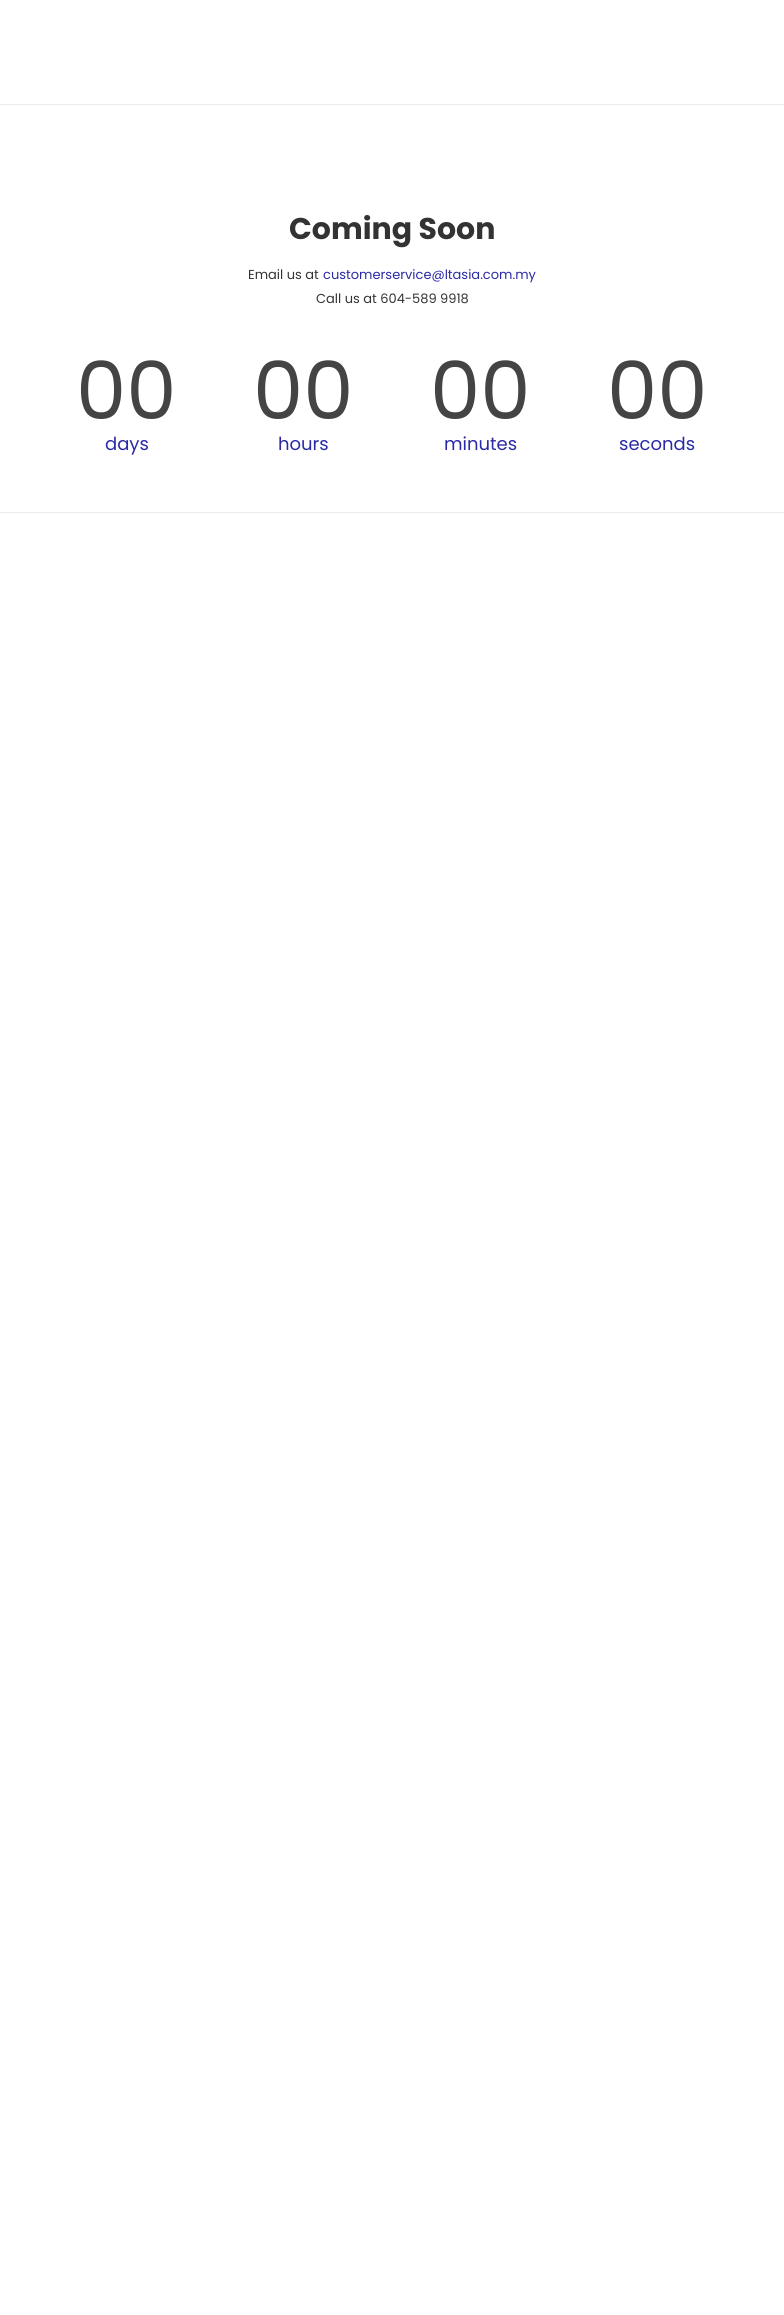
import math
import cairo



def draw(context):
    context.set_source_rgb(1, 1, 1)
    context.paint()
    context.set_source_rgb(235 / 255, 235 / 255, 235 / 255)
    context.rectangle(0, 104, 784, 1)
    context.fill()
    context.rectangle(0, 512, 784, 1)
    context.fill()
    context.select_font_face("Poppins", cairo.FontSlant.NORMAL, cairo.FontWeight.BOLD)
    context.set_font_size(30)
    context.set_source_rgb(51 / 255, 51 / 255, 51 / 255)
    context.move_to(289, 239)
    context.show_text("Coming Soon")
    context.select_font_face("Poppins")
    context.set_font_size(13)
    context.move_to(248, 279)
    context.show_text("Email us at")
    context.set_source_rgb(42 / 255, 42 / 255, 166 / 255)
    context.move_to(323, 279)
    context.show_text("customerservice@ltasia.com.my")
    context.set_source_rgb(51 / 255, 51 / 255, 51 / 255)
    context.move_to(316, 303)
    context.show_text("Call us at 604-589 9918")
    context.set_font_size(80)
    context.set_source_rgb(68 / 255, 68 / 255, 68 / 255)
    context.move_to(76, 419)
    context.show_text("00")
    context.set_font_size(18)
    context.set_source_rgb(42 / 255, 42 / 255, 166 / 255)
    context.move_to(105, 450)
    context.show_text("days")
    context.set_font_size(80)
    context.set_source_rgb(68 / 255, 68 / 255, 68 / 255)
    context.move_to(253, 419)
    context.show_text("00")
    context.set_font_size(18)
    context.set_source_rgb(42 / 255, 42 / 255, 166 / 255)
    context.move_to(278, 450)
    context.show_text("hours")
    context.set_font_size(80)
    context.set_source_rgb(68 / 255, 68 / 255, 68 / 255)
    context.move_to(430, 419)
    context.show_text("00")
    context.set_font_size(18)
    context.set_source_rgb(42 / 255, 42 / 255, 166 / 255)
    context.move_to(444, 450)
    context.show_text("minutes")
    context.set_font_size(80)
    context.set_source_rgb(68 / 255, 68 / 255, 68 / 255)
    context.move_to(607, 419)
    context.show_text("00")
    context.set_font_size(18)
    context.set_source_rgb(42 / 255, 42 / 255, 166 / 255)
    context.move_to(619, 450)
    context.show_text("seconds")


surface = cairo.ImageSurface(cairo.Format.RGB24, 784, 2315)
context = cairo.Context(surface)
options = cairo.FontOptions()
options.set_hint_metrics(cairo.HintMetrics.OFF)
options.set_hint_style(cairo.HintStyle.NONE)
context.set_font_options(options)
context.set_miter_limit(4)
draw(context)
surface.write_to_png("out.png")
